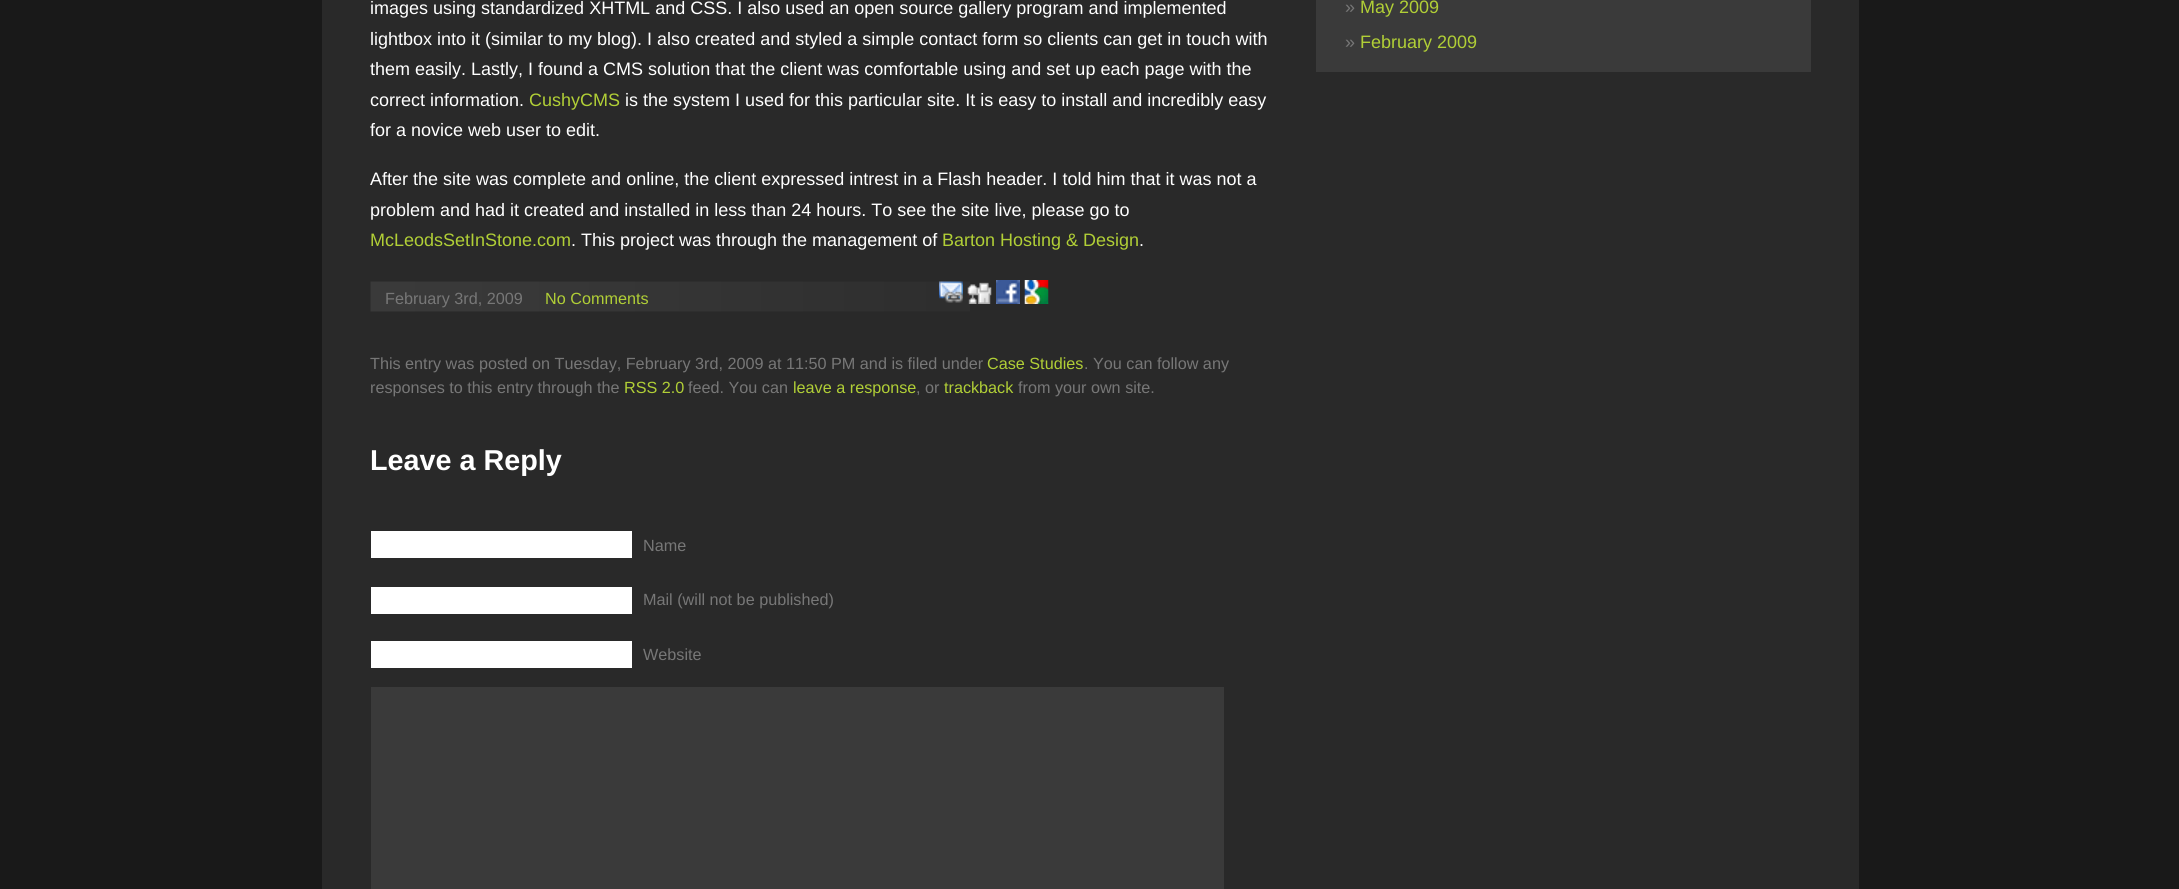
import math
import cairo



def draw_image(context, path, x, y, w, h):
    context.save()
    context.set_source_surface(cairo.ImageSurface.create_from_png(path), x, y)
    context.rectangle(x, y, w, h)
    context.fill()
    context.restore()


def draw(context):
    context.set_source_rgb(25 / 255, 25 / 255, 25 / 255)
    context.paint()
    context.set_source_rgb(41 / 255, 41 / 255, 41 / 255)
    context.rectangle(322, 0, 1537, 889)
    context.fill()
    draw_image(context, "images/1.png", 370, 281, 600, 31)
    draw_image(context, "images/2.png", 939, 281, 24, 22)
    draw_image(context, "images/3.png", 967, 282, 25, 22)
    draw_image(context, "images/4.png", 996, 280, 24, 24)
    draw_image(context, "images/5.png", 1024, 280, 25, 24)
    context.set_source_rgb(1, 1, 1)
    context.rectangle(371, 531, 261, 27)
    context.fill()
    context.rectangle(371, 587, 261, 27)
    context.fill()
    context.rectangle(371, 641, 261, 27)
    context.fill()
    context.set_source_rgb(58 / 255, 58 / 255, 58 / 255)
    context.rectangle(371, 687, 853, 202)
    context.fill()
    context.rectangle(1316, 0, 495, 72)
    context.fill()
    context.select_font_face("Liberation Sans")
    context.set_font_size(18)
    context.set_source_rgb(1, 1, 1)
    context.move_to(370, 14)
    context.show_text("images using standardized XHTML and CSS. I also used an open source gallery program and implemented")
    context.move_to(370, 45)
    context.show_text("lightbox into it (similar to my blog). I also created and styled a simple contact form so clients can get in touch with")
    context.move_to(370, 75)
    context.show_text("them easily. Lastly, I found a CMS solution that the client was comfortable using and set up each page with the")
    context.move_to(370, 106)
    context.show_text("correct information.")
    context.set_source_rgb(177 / 255, 207 / 255, 54 / 255)
    context.move_to(529, 106)
    context.show_text("CushyCMS")
    context.set_source_rgb(1, 1, 1)
    context.move_to(625, 106)
    context.show_text("is the system I used for this particular site. It is easy to install and incredibly easy")
    context.move_to(370, 136)
    context.show_text("for a novice web user to edit.")
    context.move_to(370, 185)
    context.show_text("After the site was complete and online, the client expressed intrest in a Flash header. I told him that it was not a")
    context.move_to(370, 216)
    context.show_text("problem and had it created and installed in less than 24 hours. To see the site live, please go to")
    context.set_source_rgb(177 / 255, 207 / 255, 54 / 255)
    context.move_to(370, 246)
    context.show_text("McLeodsSetInStone.com")
    context.set_source_rgb(1, 1, 1)
    context.move_to(571, 246)
    context.show_text(". This project was through the management of")
    context.set_source_rgb(177 / 255, 207 / 255, 54 / 255)
    context.move_to(942, 246)
    context.show_text("Barton Hosting & Design")
    context.set_source_rgb(1, 1, 1)
    context.move_to(1139, 246)
    context.show_text(".")
    context.set_font_size(16.2)
    context.set_source_rgb(119 / 255, 119 / 255, 119 / 255)
    context.move_to(385, 304)
    context.show_text("February 3rd, 2009")
    context.set_source_rgb(177 / 255, 207 / 255, 54 / 255)
    context.move_to(545, 304)
    context.show_text("No Comments")
    context.set_source_rgb(119 / 255, 119 / 255, 119 / 255)
    context.move_to(370, 369)
    context.show_text("This entry was posted on Tuesday, February 3rd, 2009 at 11:50 PM and is filed under")
    context.set_source_rgb(177 / 255, 207 / 255, 54 / 255)
    context.move_to(987, 369)
    context.show_text("Case Studies")
    context.set_source_rgb(119 / 255, 119 / 255, 119 / 255)
    context.move_to(1084, 369)
    context.show_text(". You can follow any")
    context.move_to(370, 393)
    context.show_text("responses to this entry through the")
    context.set_source_rgb(177 / 255, 207 / 255, 54 / 255)
    context.move_to(624, 393)
    context.show_text("RSS 2.0")
    context.set_source_rgb(119 / 255, 119 / 255, 119 / 255)
    context.move_to(688, 393)
    context.show_text("feed. You can")
    context.set_source_rgb(177 / 255, 207 / 255, 54 / 255)
    context.move_to(793, 393)
    context.show_text("leave a response")
    context.set_source_rgb(119 / 255, 119 / 255, 119 / 255)
    context.move_to(916, 393)
    context.show_text(", or")
    context.set_source_rgb(177 / 255, 207 / 255, 54 / 255)
    context.move_to(944, 393)
    context.show_text("trackback")
    context.set_source_rgb(119 / 255, 119 / 255, 119 / 255)
    context.move_to(1018, 393)
    context.show_text("from your own site.")
    context.select_font_face("Liberation Sans", cairo.FontSlant.NORMAL, cairo.FontWeight.BOLD)
    context.set_font_size(28.75)
    context.set_source_rgb(1, 1, 1)
    context.move_to(370, 470)
    context.show_text("Leave a Reply")
    context.select_font_face("Liberation Sans")
    context.set_font_size(16.2)
    context.set_source_rgb(119 / 255, 119 / 255, 119 / 255)
    context.move_to(643, 551)
    context.show_text("Name")
    context.move_to(643, 605)
    context.show_text("Mail (will not be published)")
    context.move_to(643, 660)
    context.show_text("Website")
    context.set_font_size(18)
    context.move_to(1345, 13)
    context.show_text("»")
    context.set_source_rgb(177 / 255, 207 / 255, 54 / 255)
    context.move_to(1360, 13)
    context.show_text("May 2009")
    context.set_source_rgb(119 / 255, 119 / 255, 119 / 255)
    context.move_to(1345, 48)
    context.show_text("»")
    context.set_source_rgb(177 / 255, 207 / 255, 54 / 255)
    context.move_to(1360, 48)
    context.show_text("February 2009")


surface = cairo.ImageSurface(cairo.Format.RGB24, 2179, 889)
context = cairo.Context(surface)
options = cairo.FontOptions()
options.set_hint_metrics(cairo.HintMetrics.OFF)
options.set_hint_style(cairo.HintStyle.NONE)
context.set_font_options(options)
context.set_miter_limit(4)
draw(context)
surface.write_to_png("out.png")
